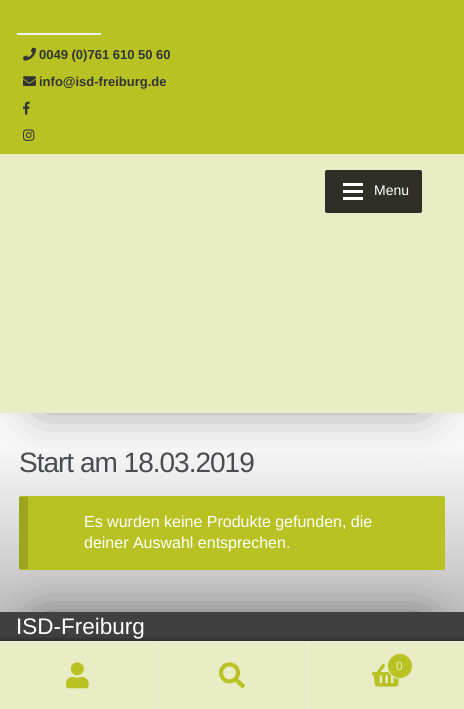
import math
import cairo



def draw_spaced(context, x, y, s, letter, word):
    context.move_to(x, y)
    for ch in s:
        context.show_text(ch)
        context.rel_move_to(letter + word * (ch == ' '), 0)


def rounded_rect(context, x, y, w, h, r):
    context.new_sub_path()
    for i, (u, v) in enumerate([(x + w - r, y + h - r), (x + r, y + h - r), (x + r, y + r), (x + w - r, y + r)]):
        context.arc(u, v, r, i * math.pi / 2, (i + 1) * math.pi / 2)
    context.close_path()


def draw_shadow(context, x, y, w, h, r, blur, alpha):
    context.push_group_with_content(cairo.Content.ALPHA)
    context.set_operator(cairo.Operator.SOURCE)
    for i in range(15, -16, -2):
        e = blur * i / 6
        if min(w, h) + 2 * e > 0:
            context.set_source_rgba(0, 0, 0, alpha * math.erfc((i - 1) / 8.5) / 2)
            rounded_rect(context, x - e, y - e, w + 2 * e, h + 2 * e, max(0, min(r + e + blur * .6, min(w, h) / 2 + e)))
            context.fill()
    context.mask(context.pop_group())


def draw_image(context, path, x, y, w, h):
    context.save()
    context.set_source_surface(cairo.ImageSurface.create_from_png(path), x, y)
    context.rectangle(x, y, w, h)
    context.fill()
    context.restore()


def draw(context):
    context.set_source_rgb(248 / 255, 248 / 255, 248 / 255)
    context.paint()
    context.set_source_rgb(184 / 255, 194 / 255, 35 / 255)
    context.rectangle(0, 0, 464, 154)
    context.fill()
    context.set_source_rgb(238 / 255, 238 / 255, 238 / 255)
    context.rectangle(17, 33, 84, 2)
    context.fill()
    draw_image(context, "images/1.png", 23, 47, 13, 14)
    draw_image(context, "images/2.png", 23, 76, 13, 10)
    draw_image(context, "images/3.png", 23, 101, 7, 14)
    draw_image(context, "images/4.png", 23, 129, 12, 12)
    gradient = cairo.LinearGradient(232, 445, 232, 612)
    gradient.add_color_stop_rgba(0, 248 / 255, 248 / 255, 248 / 255, 1)
    gradient.add_color_stop_rgba(1, 191 / 255, 191 / 255, 191 / 255, 1)
    context.set_source(gradient)
    context.rectangle(0, 452, 464, 160)
    context.fill()
    context.set_source_rgb(0, 0, 0)
    draw_shadow(context, 40, 224, 384, 179, 0, 25, 0.5)
    context.set_source_rgb(234 / 255, 236 / 255, 197 / 255)
    context.rectangle(0, 154, 464, 259)
    context.fill()
    context.set_source_rgb(47 / 255, 47 / 255, 39 / 255)
    rounded_rect(context, 325, 170, 97, 43, 2)
    context.fill()
    context.set_source_rgb(1, 1, 1)
    context.rectangle(343, 183, 20, 3)
    context.fill()
    context.rectangle(343, 190, 20, 3)
    context.fill()
    context.rectangle(343, 197, 20, 3)
    context.fill()
    context.set_source_rgb(0, 0, 0)
    draw_shadow(context, 40, 622, 384, 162, 0, 25, 0.5)
    context.set_source_rgb(184 / 255, 194 / 255, 35 / 255)
    rounded_rect(context, 19, 496, 426, 74, 2)
    context.fill()
    context.set_source_rgba(0, 0, 0, 0.15)
    context.rectangle(19, 497, 9, 72)
    context.fill()
    context.set_source_rgb(64 / 255, 64 / 255, 64 / 255)
    context.rectangle(0, 612, 464, 29)
    context.fill()
    context.set_source_rgb(0, 0, 0)
    draw_shadow(context, 0, 641, 464, 68, 0, 3, 0.7)
    context.set_source_rgb(234 / 255, 236 / 255, 197 / 255)
    context.rectangle(0, 641, 309, 68)
    context.fill()
    context.set_source_rgb(238 / 255, 240 / 255, 209 / 255)
    context.new_path()
    context.move_to(0, 641)
    context.line_to(155, 641)
    context.line_to(154, 642)
    context.line_to(0, 642)
    context.close_path()
    context.fill()
    context.set_source_rgba(1, 1, 1, 0.2)
    context.new_path()
    context.move_to(155, 641)
    context.line_to(155, 709)
    context.line_to(154, 709)
    context.line_to(154, 642)
    context.close_path()
    context.fill()
    draw_image(context, "images/5.png", 66, 662, 23, 27)
    context.set_source_rgb(238 / 255, 240 / 255, 209 / 255)
    context.new_path()
    context.move_to(155, 641)
    context.line_to(309, 641)
    context.line_to(308, 642)
    context.line_to(155, 642)
    context.close_path()
    context.fill()
    context.set_source_rgba(1, 1, 1, 0.2)
    context.new_path()
    context.move_to(309, 641)
    context.line_to(309, 709)
    context.line_to(308, 709)
    context.line_to(308, 642)
    context.close_path()
    context.fill()
    draw_image(context, "images/6.png", 219, 662, 26, 27)
    context.set_source_rgb(234 / 255, 236 / 255, 197 / 255)
    context.rectangle(309, 642, 155, 67)
    context.fill()
    context.set_source_rgb(238 / 255, 240 / 255, 209 / 255)
    context.rectangle(309, 641, 155, 1)
    context.fill()
    draw_image(context, "images/7.png", 372, 664, 28, 23)
    context.set_source_rgb(184 / 255, 194 / 255, 35 / 255)
    context.arc(400, 666, 12.5, 0, 2 * math.pi)
    context.fill_preserve()
    context.set_source_rgb(234 / 255, 236 / 255, 197 / 255)
    context.set_line_width(1)
    context.stroke()
    context.select_font_face("Liberation Sans", cairo.FontSlant.NORMAL, cairo.FontWeight.BOLD)
    context.set_font_size(13)
    context.set_source_rgb(51 / 255, 51 / 255, 51 / 255)
    context.move_to(39, 59)
    context.show_text("0049 (0)761 610 50 60")
    context.move_to(39, 86)
    context.show_text("info@isd-freiburg.de")
    context.select_font_face("Arimo")
    context.set_font_size(14)
    context.set_source_rgb(1, 1, 1)
    context.move_to(374, 195)
    context.show_text("Menu")
    context.set_font_size(28)
    context.set_source_rgb(72 / 255, 76 / 255, 81 / 255)
    draw_spaced(context, 19, 472, "Start am 18.03.2019", -1, 0)
    context.set_font_size(16)
    context.set_source_rgb(1, 1, 1)
    context.move_to(84, 527)
    context.show_text("Es wurden keine Produkte gefunden, die")
    context.move_to(84, 548)
    context.show_text("deiner Auswahl entsprechen.")
    context.set_font_size(22.5)
    context.move_to(16, 634)
    context.show_text("ISD-Freiburg")
    context.set_font_size(12)
    context.set_source_rgb(234 / 255, 236 / 255, 197 / 255)
    context.move_to(396, 670)
    context.show_text("0")


surface = cairo.ImageSurface(cairo.Format.RGB24, 464, 709)
context = cairo.Context(surface)
options = cairo.FontOptions()
options.set_hint_metrics(cairo.HintMetrics.OFF)
options.set_hint_style(cairo.HintStyle.NONE)
context.set_font_options(options)
context.set_miter_limit(4)
draw(context)
surface.write_to_png("out.png")
